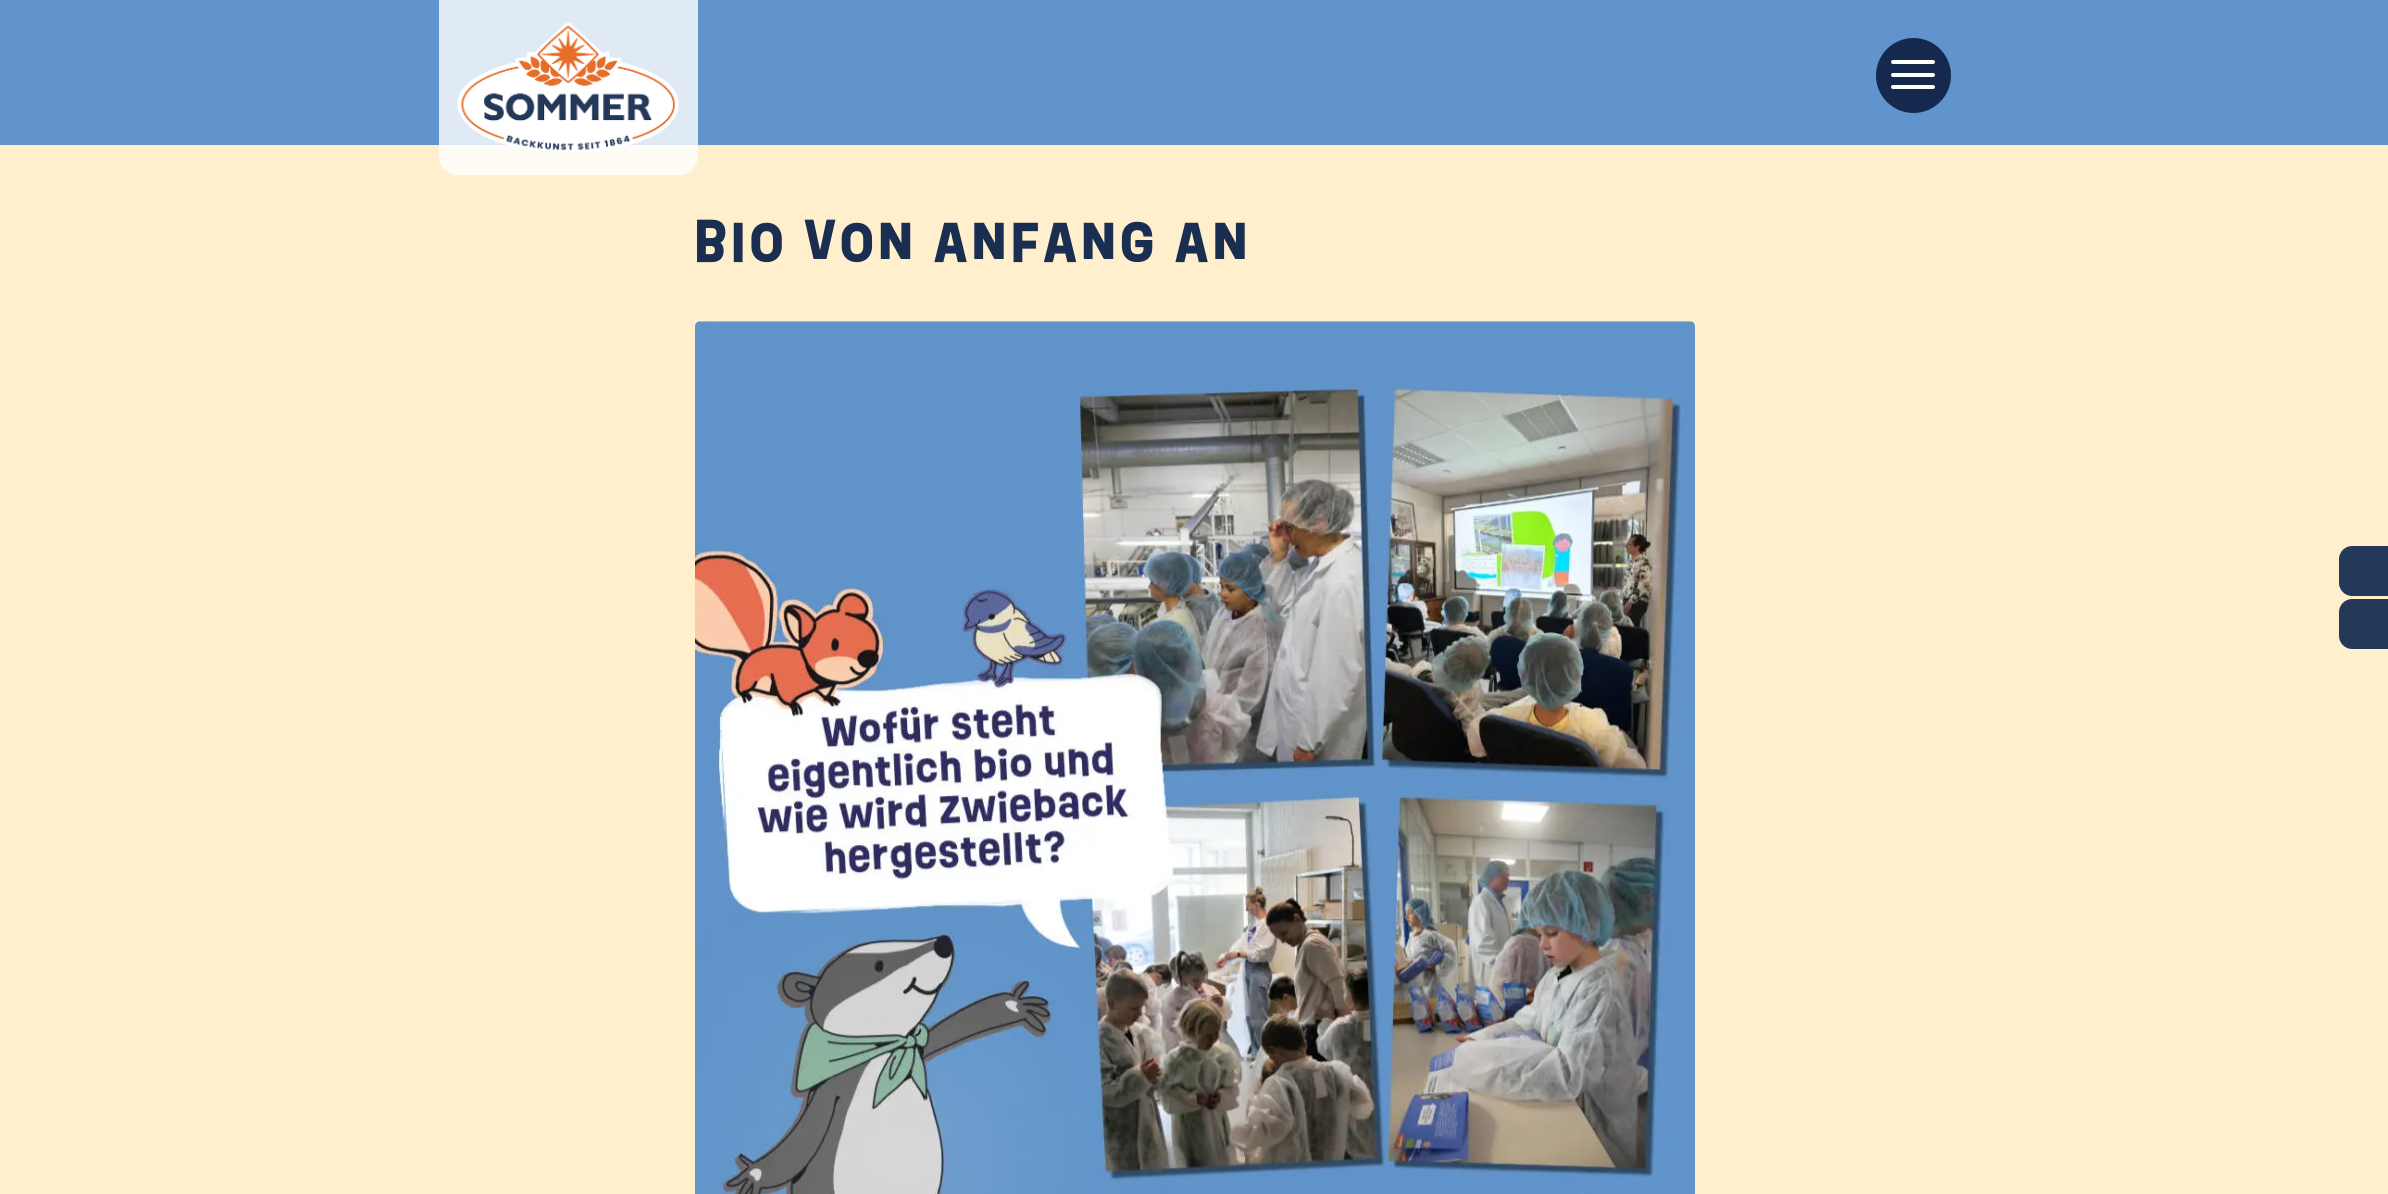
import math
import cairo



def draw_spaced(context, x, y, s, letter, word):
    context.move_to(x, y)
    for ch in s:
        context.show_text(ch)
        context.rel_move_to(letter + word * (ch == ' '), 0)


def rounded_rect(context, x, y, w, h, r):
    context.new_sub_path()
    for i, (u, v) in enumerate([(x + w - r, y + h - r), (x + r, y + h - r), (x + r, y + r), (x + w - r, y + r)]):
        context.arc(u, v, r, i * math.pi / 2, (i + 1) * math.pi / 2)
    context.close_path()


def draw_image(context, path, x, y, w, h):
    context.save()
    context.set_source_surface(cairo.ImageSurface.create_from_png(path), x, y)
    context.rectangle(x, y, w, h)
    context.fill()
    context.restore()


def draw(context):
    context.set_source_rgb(97 / 255, 148 / 255, 205 / 255)
    context.paint()
    context.set_source_rgb(1, 239 / 255, 204 / 255)
    context.rectangle(0, 145, 2388, 1049)
    context.fill()
    context.set_source_rgba(1, 1, 1, 0.8)
    context.new_path()
    context.move_to(439, 0)
    context.line_to(698, 0)
    context.line_to(698, 156)
    context.curve_to(698, 166.5, 689.5, 175, 679, 175)
    context.line_to(458, 175)
    context.curve_to(447.5, 175, 439, 166.5, 439, 156)
    context.close_path()
    context.fill()
    draw_image(context, "images/1.png", 457, 22, 222, 131)
    context.set_source_rgb(20 / 255, 41 / 255, 77 / 255)
    context.arc(1913.5, 75.5, 37.5, 0, 2 * math.pi)
    context.fill()
    context.set_source_rgb(1, 1, 1)
    rounded_rect(context, 1891, 73, 44, 4, 2)
    context.fill()
    rounded_rect(context, 1891, 60, 44, 4, 2)
    context.fill()
    rounded_rect(context, 1891, 85, 44, 4, 2)
    context.fill()
    draw_image(context, "images/2.png", 695, 321, 1000, 873)
    context.set_source_rgb(36 / 255, 56 / 255, 89 / 255)
    context.new_path()
    context.move_to(2352, 546)
    context.line_to(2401, 546)
    context.line_to(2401, 596)
    context.line_to(2352, 596)
    context.curve_to(2345, 596, 2339, 590, 2339, 583)
    context.line_to(2339, 559)
    context.curve_to(2339, 552, 2345, 546, 2352, 546)
    context.close_path()
    context.fill()
    context.new_path()
    context.move_to(2352, 599)
    context.line_to(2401, 599)
    context.line_to(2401, 649)
    context.line_to(2352, 649)
    context.curve_to(2345, 649, 2339, 643, 2339, 636)
    context.line_to(2339, 612)
    context.curve_to(2339, 605, 2345, 599, 2352, 599)
    context.close_path()
    context.fill()
    context.select_font_face("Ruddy", cairo.FontSlant.NORMAL, cairo.FontWeight.BOLD)
    context.set_font_size(51.75)
    context.set_source_rgb(25 / 255, 46 / 255, 80 / 255)
    draw_spaced(context, 694, 259, "BIO VON ANFANG AN", 3.75, 0)


surface = cairo.ImageSurface(cairo.Format.RGB24, 2388, 1194)
context = cairo.Context(surface)
options = cairo.FontOptions()
options.set_hint_metrics(cairo.HintMetrics.OFF)
options.set_hint_style(cairo.HintStyle.NONE)
context.set_font_options(options)
context.set_miter_limit(4)
draw(context)
surface.write_to_png("out.png")
